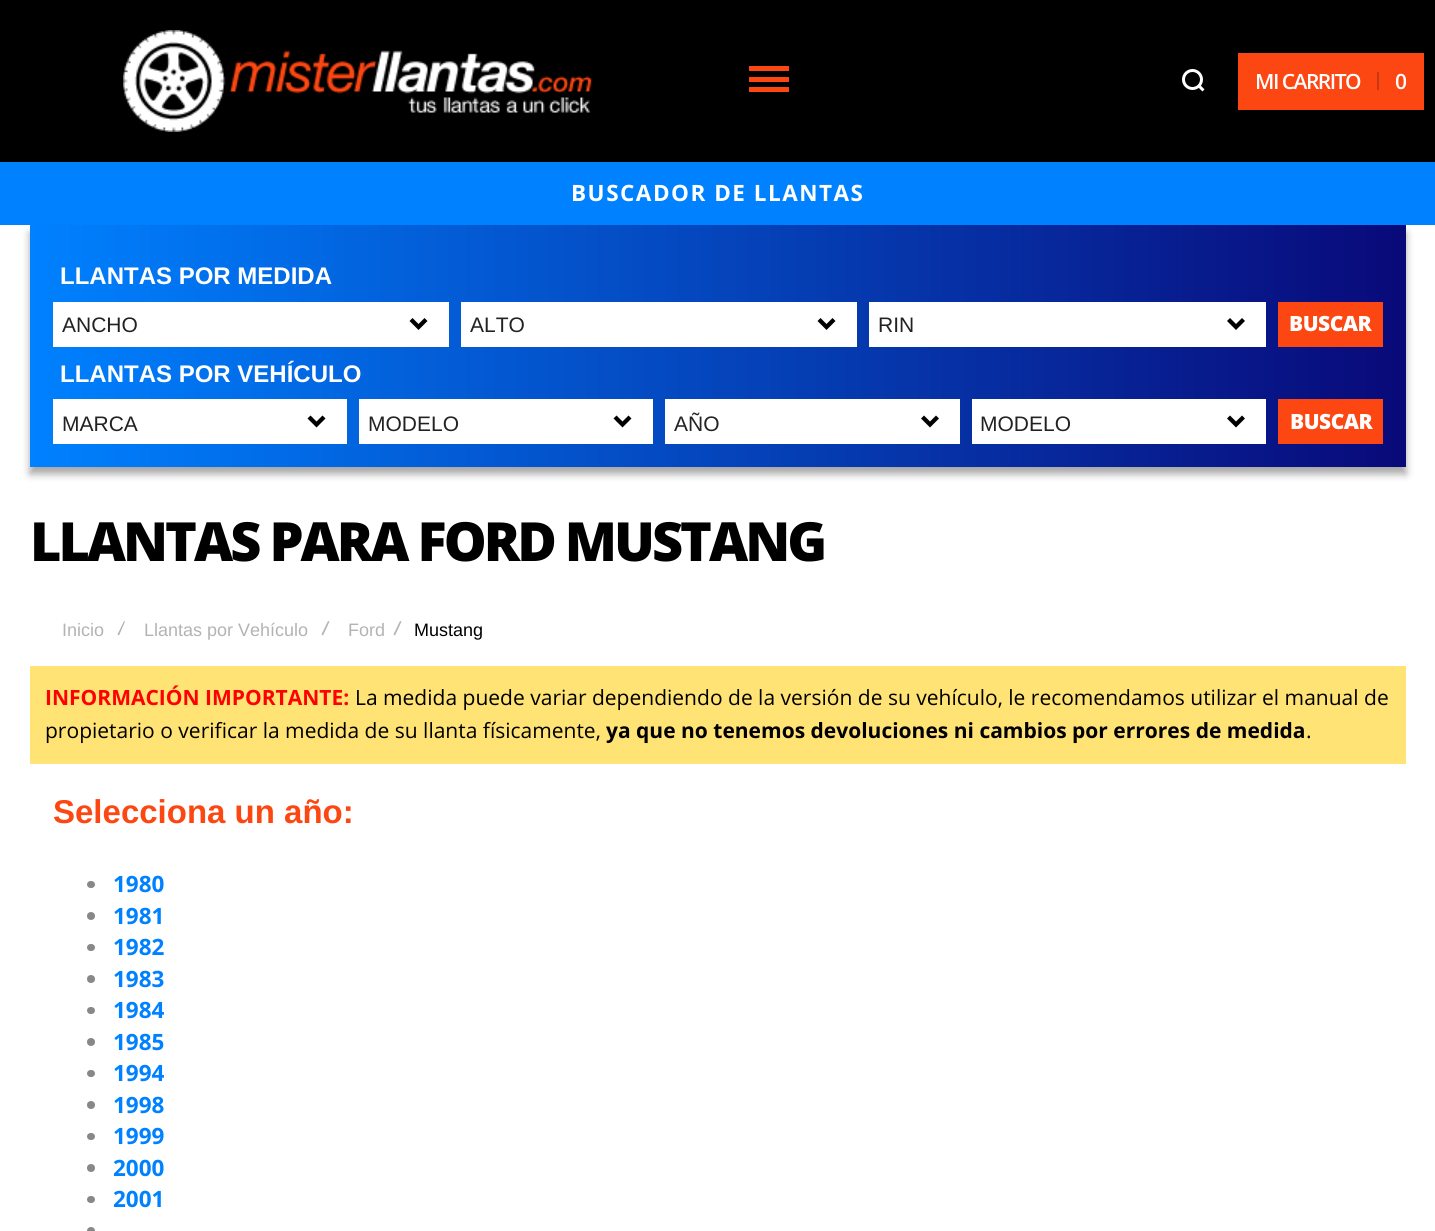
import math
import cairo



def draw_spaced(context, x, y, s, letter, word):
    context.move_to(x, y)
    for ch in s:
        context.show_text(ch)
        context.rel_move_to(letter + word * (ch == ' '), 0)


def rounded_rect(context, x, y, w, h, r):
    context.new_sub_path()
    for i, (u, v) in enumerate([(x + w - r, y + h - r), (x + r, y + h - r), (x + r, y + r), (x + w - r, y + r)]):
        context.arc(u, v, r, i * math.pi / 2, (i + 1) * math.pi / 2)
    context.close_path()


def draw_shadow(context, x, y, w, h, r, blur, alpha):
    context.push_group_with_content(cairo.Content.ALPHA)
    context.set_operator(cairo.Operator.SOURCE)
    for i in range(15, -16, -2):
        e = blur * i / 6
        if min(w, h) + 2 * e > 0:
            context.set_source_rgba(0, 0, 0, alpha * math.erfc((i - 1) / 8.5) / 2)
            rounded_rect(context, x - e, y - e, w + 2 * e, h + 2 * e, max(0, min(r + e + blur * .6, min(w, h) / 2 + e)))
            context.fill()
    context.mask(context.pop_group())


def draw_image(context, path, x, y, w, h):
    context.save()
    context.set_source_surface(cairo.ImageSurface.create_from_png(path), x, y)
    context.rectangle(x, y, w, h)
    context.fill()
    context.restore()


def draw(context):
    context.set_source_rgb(1, 1, 1)
    context.paint()
    context.set_source_rgb(0, 0, 0)
    context.rectangle(0, 0, 1435, 162)
    context.fill()
    draw_image(context, "images/1.png", 123, 30, 469, 102)
    context.set_source_rgb(252 / 255, 71 / 255, 18 / 255)
    context.rectangle(749, 66, 40, 5)
    context.fill()
    context.rectangle(749, 77, 40, 5)
    context.fill()
    context.rectangle(749, 87, 40, 5)
    context.fill()
    draw_image(context, "images/2.png", 1182, 69, 23, 23)
    context.rectangle(1238, 53, 186, 57)
    context.fill()
    context.set_source_rgb(199 / 255, 56 / 255, 14 / 255)
    context.rectangle(1377, 72, 2, 18)
    context.fill()
    context.set_source_rgb(0, 129 / 255, 1)
    context.rectangle(0, 162, 1435, 63)
    context.fill()
    context.set_source_rgb(0, 0, 0)
    draw_shadow(context, 30, 233, 1376, 241, 0, 4, 0.35)
    gradient = cairo.LinearGradient(1406, 346, 30, 346)
    gradient.add_color_stop_rgba(0, 9 / 255, 9 / 255, 121 / 255, 1)
    gradient.add_color_stop_rgba(1, 0, 129 / 255, 1, 1)
    context.set_source(gradient)
    context.rectangle(30, 225, 1376, 242)
    context.fill()
    context.set_source_rgb(1, 1, 1)
    context.rectangle(55, 304, 392, 41)
    context.fill()
    context.set_source_rgb(0, 0, 0)
    context.new_path()
    context.move_to(424.5, 318)
    context.line_to(418.5, 324)
    context.line_to(412.5, 318)
    context.line_to(409.5, 321)
    context.line_to(418.5, 330)
    context.line_to(427.5, 321)
    context.close_path()
    context.fill()
    context.rectangle(54, 303, 394, 43)
    context.set_source_rgb(1, 1, 1)
    context.stroke()
    context.rectangle(463, 304, 392, 41)
    context.fill()
    context.set_source_rgb(0, 0, 0)
    context.new_path()
    context.move_to(832.5, 318)
    context.line_to(826.5, 324)
    context.line_to(820.5, 318)
    context.line_to(817.5, 321)
    context.line_to(826.5, 330)
    context.line_to(835.5, 321)
    context.close_path()
    context.fill()
    context.rectangle(462, 303, 394, 43)
    context.set_source_rgb(1, 1, 1)
    context.stroke()
    context.rectangle(871, 304, 393, 41)
    context.fill()
    context.set_source_rgb(0, 0, 0)
    context.new_path()
    context.move_to(1242, 318)
    context.line_to(1236, 324)
    context.line_to(1230, 318)
    context.line_to(1227, 321)
    context.line_to(1236, 330)
    context.line_to(1245, 321)
    context.close_path()
    context.fill()
    context.rectangle(870, 303, 395, 43)
    context.set_source_rgb(1, 1, 1)
    context.stroke()
    context.set_source_rgb(252 / 255, 71 / 255, 18 / 255)
    context.rectangle(1278, 302, 105, 45)
    context.fill()
    context.set_source_rgb(1, 1, 1)
    context.rectangle(55, 401, 290, 41)
    context.fill()
    context.set_source_rgb(0, 0, 0)
    context.new_path()
    context.move_to(322.5, 415.5)
    context.line_to(316.5, 421.5)
    context.line_to(310.5, 415.5)
    context.line_to(307.5, 418.5)
    context.line_to(316.5, 427.5)
    context.line_to(325.5, 418.5)
    context.close_path()
    context.fill()
    context.rectangle(54, 400, 292, 43)
    context.set_source_rgb(1, 1, 1)
    context.stroke()
    context.rectangle(361, 401, 290, 41)
    context.fill()
    context.set_source_rgb(0, 0, 0)
    context.new_path()
    context.move_to(628.5, 415.5)
    context.line_to(622.5, 421.5)
    context.line_to(616.5, 415.5)
    context.line_to(613.5, 418.5)
    context.line_to(622.5, 427.5)
    context.line_to(631.5, 418.5)
    context.close_path()
    context.fill()
    context.rectangle(360, 400, 292, 43)
    context.set_source_rgb(1, 1, 1)
    context.stroke()
    context.rectangle(667, 401, 291, 41)
    context.fill()
    context.set_source_rgb(0, 0, 0)
    context.new_path()
    context.move_to(936, 415.5)
    context.line_to(930, 421.5)
    context.line_to(924, 415.5)
    context.line_to(921, 418.5)
    context.line_to(930, 427.5)
    context.line_to(939, 418.5)
    context.close_path()
    context.fill()
    context.rectangle(666, 400, 293, 43)
    context.set_source_rgb(1, 1, 1)
    context.stroke()
    context.rectangle(974, 401, 290, 41)
    context.fill()
    context.set_source_rgb(0, 0, 0)
    context.new_path()
    context.move_to(1242, 415.5)
    context.line_to(1236, 421.5)
    context.line_to(1230, 415.5)
    context.line_to(1227, 418.5)
    context.line_to(1236, 427.5)
    context.line_to(1245, 418.5)
    context.close_path()
    context.fill()
    context.rectangle(973, 400, 292, 43)
    context.set_source_rgb(1, 1, 1)
    context.stroke()
    context.set_source_rgb(252 / 255, 71 / 255, 18 / 255)
    context.rectangle(1278, 399, 105, 45)
    context.fill()
    context.set_source_rgb(179 / 255, 179 / 255, 179 / 255)
    context.new_path()
    context.move_to(124, 621)
    context.line_to(125, 621.5)
    context.line_to(119, 635.5)
    context.line_to(117.5, 634.5)
    context.close_path()
    context.fill()
    context.new_path()
    context.move_to(328, 621)
    context.line_to(329.5, 621.5)
    context.line_to(323, 635.5)
    context.line_to(321.5, 634.5)
    context.close_path()
    context.fill()
    context.new_path()
    context.move_to(400, 621)
    context.line_to(401.5, 621.5)
    context.line_to(395, 635.5)
    context.line_to(393.5, 634.5)
    context.close_path()
    context.fill()
    context.set_source_rgb(1, 227 / 255, 116 / 255)
    context.rectangle(30, 666, 1376, 98)
    context.fill()
    context.set_source_rgb(136 / 255, 136 / 255, 136 / 255)
    rounded_rect(context, 87, 881, 8, 7, 3.5)
    context.fill()
    context.arc(91, 916, 4, 0, 2 * math.pi)
    context.fill()
    rounded_rect(context, 87, 944, 8, 7, 3.5)
    context.fill()
    context.arc(91, 979, 4, 0, 2 * math.pi)
    context.fill()
    rounded_rect(context, 87, 1007, 8, 7, 3.5)
    context.fill()
    context.arc(91, 1042, 4, 0, 2 * math.pi)
    context.fill()
    rounded_rect(context, 87, 1070, 8, 7, 3.5)
    context.fill()
    context.arc(91, 1105, 4, 0, 2 * math.pi)
    context.fill()
    rounded_rect(context, 87, 1133, 8, 7, 3.5)
    context.fill()
    context.arc(91, 1168, 4, 0, 2 * math.pi)
    context.fill()
    rounded_rect(context, 87, 1196, 8, 7, 3.5)
    context.fill()
    context.arc(91, 1231, 4, 0, 2 * math.pi)
    context.fill()
    context.select_font_face("Open Sans SemiBold")
    context.set_font_size(21)
    context.set_source_rgb(1, 1, 1)
    draw_spaced(context, 1255, 89, "MI CARRITO", -1.5, 0)
    draw_spaced(context, 1395, 89, "0", -1.5, 0)
    context.select_font_face("Open Sans", cairo.FontSlant.NORMAL, cairo.FontWeight.BOLD)
    context.set_font_size(22.5)
    draw_spaced(context, 571, 201, "BUSCADOR DE LLANTAS", 1.5, 0)
    context.select_font_face("Liberation Sans", cairo.FontSlant.NORMAL, cairo.FontWeight.BOLD)
    context.set_font_size(24)
    context.move_to(60, 284)
    context.show_text("LLANTAS POR MEDIDA")
    context.select_font_face("Liberation Sans")
    context.set_font_size(21)
    context.set_source_rgb(34 / 255, 34 / 255, 34 / 255)
    context.move_to(62, 332)
    context.show_text("ANCHO")
    context.move_to(470, 332)
    context.show_text("ALTO")
    context.move_to(878, 332)
    context.show_text("RIN")
    context.select_font_face("Open Sans ExtraBold")
    context.set_source_rgb(1, 1, 1)
    draw_spaced(context, 1289, 331, "BUSCAR", -0.5, 0)
    context.select_font_face("Liberation Sans", cairo.FontSlant.NORMAL, cairo.FontWeight.BOLD)
    context.set_font_size(24)
    context.move_to(60, 382)
    context.show_text("LLANTAS POR VEHÍCULO")
    context.select_font_face("Liberation Sans")
    context.set_font_size(21)
    context.set_source_rgb(34 / 255, 34 / 255, 34 / 255)
    context.move_to(62, 431)
    context.show_text("MARCA")
    context.move_to(368, 431)
    context.show_text("MODELO")
    context.move_to(674, 431)
    context.show_text("AÑO")
    context.move_to(980, 431)
    context.show_text("MODELO")
    context.select_font_face("Open Sans ExtraBold")
    context.set_source_rgb(1, 1, 1)
    draw_spaced(context, 1290, 429, "BUSCAR", -0.5, 0)
    context.set_font_size(54)
    context.set_source_rgb(0, 0, 0)
    draw_spaced(context, 30, 561, "LLANTAS PARA FORD MUSTANG", -3, 0)
    context.select_font_face("Liberation Sans")
    context.set_font_size(18)
    context.set_source_rgb(179 / 255, 179 / 255, 179 / 255)
    context.move_to(62, 636)
    context.show_text("Inicio")
    context.move_to(144, 636)
    context.show_text("Llantas por Vehículo")
    context.move_to(348, 636)
    context.show_text("Ford")
    context.set_source_rgb(0, 0, 0)
    context.move_to(414, 636)
    context.show_text("Mustang")
    context.select_font_face("Open Sans", cairo.FontSlant.NORMAL, cairo.FontWeight.BOLD)
    context.set_font_size(21)
    context.set_source_rgb(1, 0, 0)
    context.move_to(45, 705)
    context.show_text("INFORMACIÓN IMPORTANTE:")
    context.select_font_face("Open Sans")
    context.set_source_rgb(0, 0, 0)
    context.move_to(355, 705)
    context.show_text("La medida puede variar dependiendo de la versión de su vehículo, le recomendamos utilizar el manual de")
    context.move_to(45, 738)
    context.show_text("propietario o verificar la medida de su llanta físicamente,")
    context.select_font_face("Open Sans", cairo.FontSlant.NORMAL, cairo.FontWeight.BOLD)
    context.move_to(606, 738)
    context.show_text("ya que no tenemos devoluciones ni cambios por errores de medida")
    context.select_font_face("Open Sans")
    context.move_to(1306, 738)
    context.show_text(".")
    context.select_font_face("Liberation Sans", cairo.FontSlant.NORMAL, cairo.FontWeight.BOLD)
    context.set_font_size(33)
    context.set_source_rgb(252 / 255, 71 / 255, 18 / 255)
    context.move_to(53, 823)
    context.show_text("Selecciona un año:")
    context.select_font_face("Open Sans", cairo.FontSlant.NORMAL, cairo.FontWeight.BOLD)
    context.set_font_size(22.5)
    context.set_source_rgb(0, 129 / 255, 1)
    context.move_to(113, 892)
    context.show_text("1980")
    context.move_to(113, 924)
    context.show_text("1981")
    context.move_to(113, 955)
    context.show_text("1982")
    context.move_to(113, 987)
    context.show_text("1983")
    context.move_to(113, 1018)
    context.show_text("1984")
    context.move_to(113, 1050)
    context.show_text("1985")
    context.move_to(113, 1081)
    context.show_text("1994")
    context.move_to(113, 1113)
    context.show_text("1998")
    context.move_to(113, 1144)
    context.show_text("1999")
    context.move_to(113, 1176)
    context.show_text("2000")
    context.move_to(113, 1207)
    context.show_text("2001")


surface = cairo.ImageSurface(cairo.Format.RGB24, 1435, 1231)
context = cairo.Context(surface)
options = cairo.FontOptions()
options.set_hint_metrics(cairo.HintMetrics.OFF)
options.set_hint_style(cairo.HintStyle.NONE)
context.set_font_options(options)
context.set_miter_limit(4)
draw(context)
surface.write_to_png("out.png")
